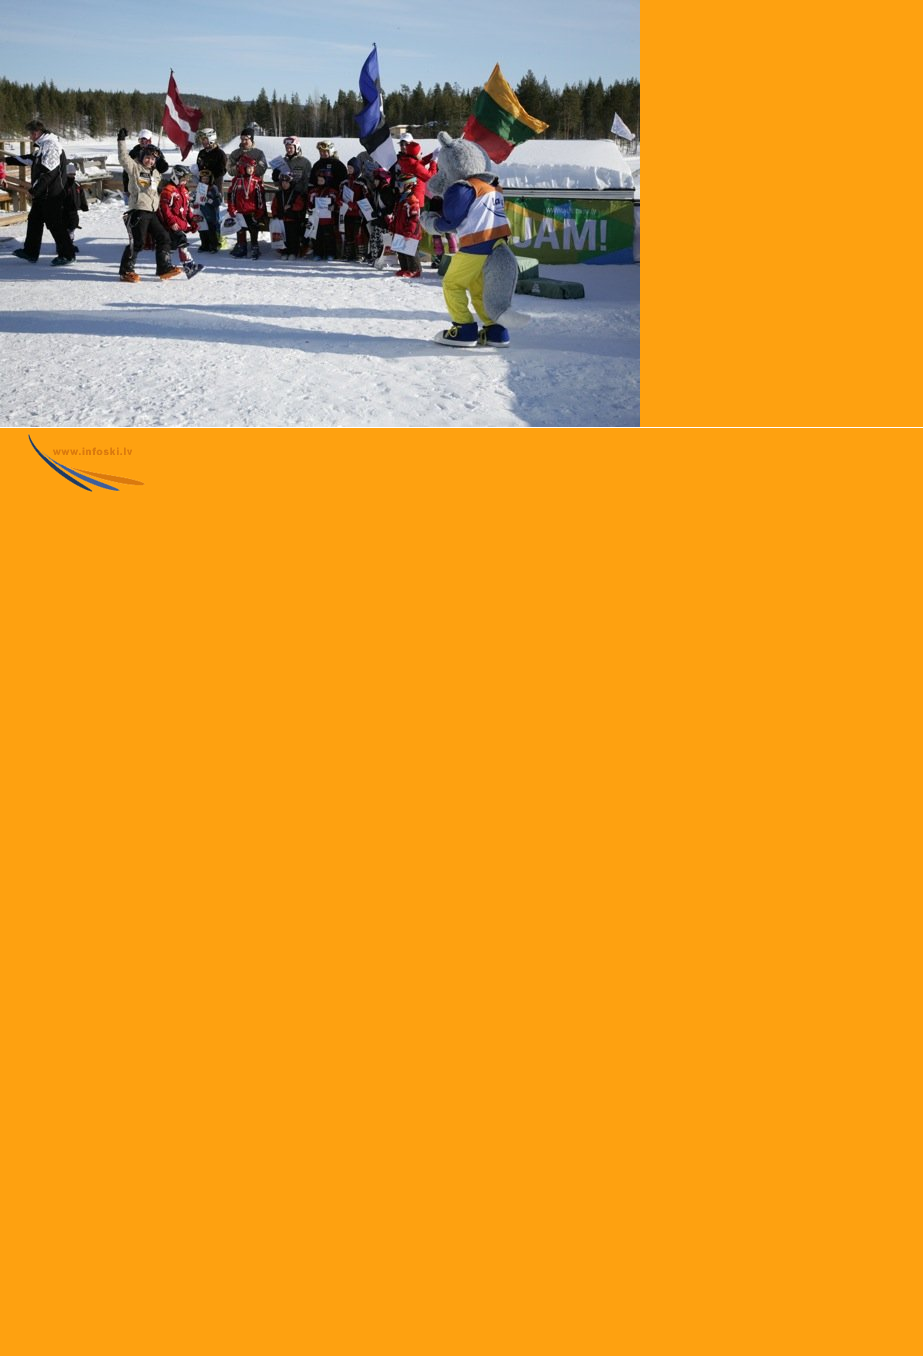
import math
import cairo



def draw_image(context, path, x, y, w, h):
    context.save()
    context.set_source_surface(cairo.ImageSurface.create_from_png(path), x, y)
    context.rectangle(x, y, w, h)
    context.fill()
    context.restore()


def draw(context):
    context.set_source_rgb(254 / 255, 161 / 255, 16 / 255)
    context.paint()
    draw_image(context, "images/1.png", 0, 0, 640, 427)
    draw_image(context, "images/2.png", 0, 427, 158, 66)
    context.set_source_rgb(1, 1, 1)
    context.rectangle(158, 427, 765, 1)
    context.fill()


surface = cairo.ImageSurface(cairo.Format.RGB24, 923, 1356)
context = cairo.Context(surface)
options = cairo.FontOptions()
options.set_hint_metrics(cairo.HintMetrics.OFF)
options.set_hint_style(cairo.HintStyle.NONE)
context.set_font_options(options)
context.set_miter_limit(4)
draw(context)
surface.write_to_png("out.png")
